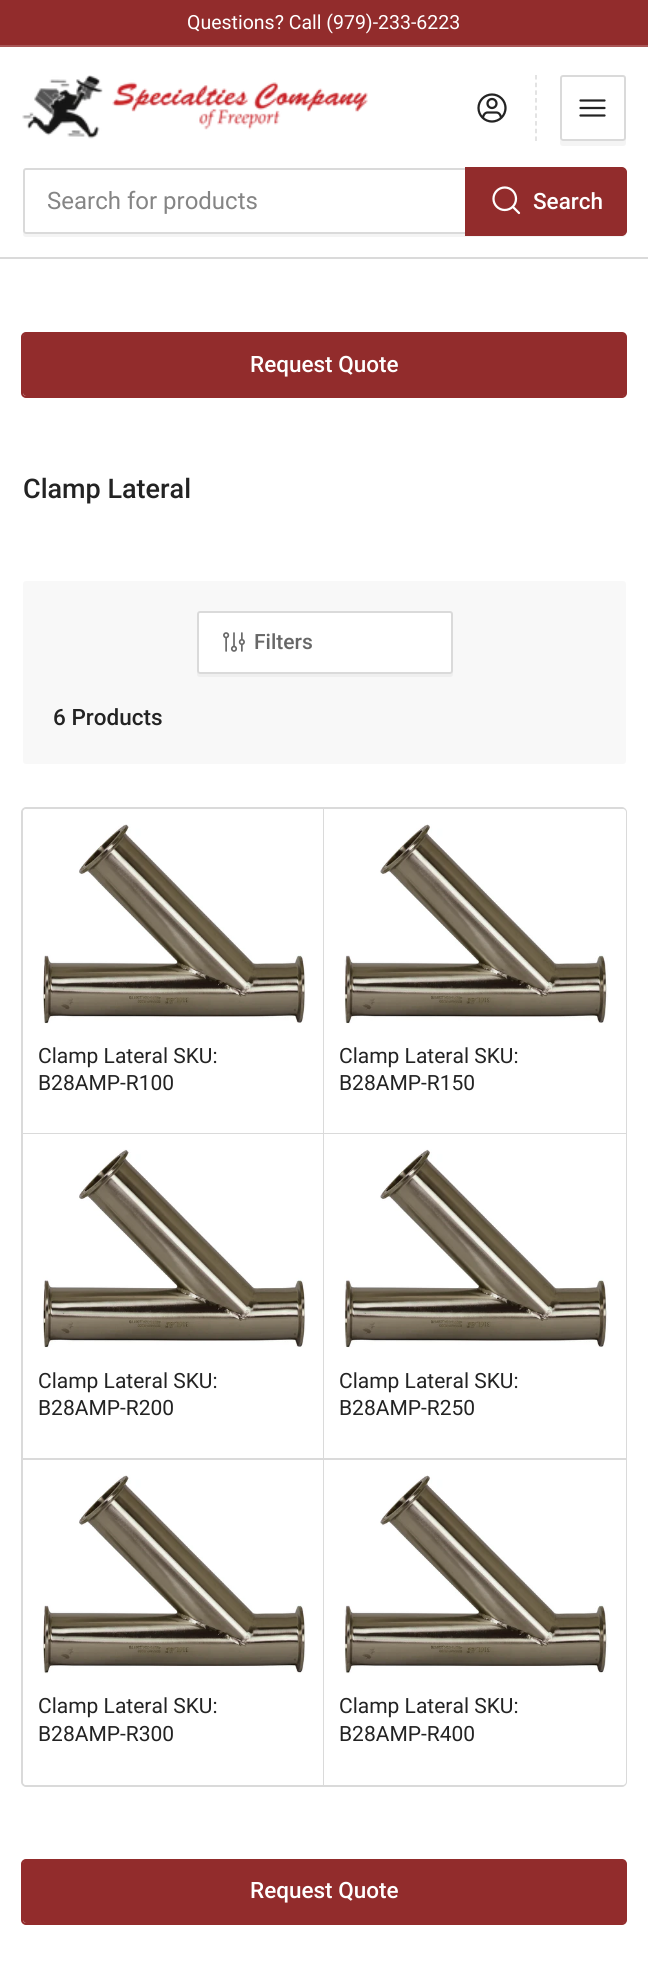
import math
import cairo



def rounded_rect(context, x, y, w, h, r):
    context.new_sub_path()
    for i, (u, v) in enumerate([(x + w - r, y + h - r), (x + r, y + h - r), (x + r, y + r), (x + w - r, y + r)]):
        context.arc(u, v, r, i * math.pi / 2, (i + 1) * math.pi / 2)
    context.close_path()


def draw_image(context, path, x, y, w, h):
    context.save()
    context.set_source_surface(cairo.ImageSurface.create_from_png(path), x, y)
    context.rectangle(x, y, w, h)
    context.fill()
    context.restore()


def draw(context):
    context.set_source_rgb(1, 1, 1)
    context.paint()
    context.set_source_rgb(146 / 255, 44 / 255, 44 / 255)
    context.rectangle(0, 0, 648, 45)
    context.fill()
    context.set_source_rgb(168 / 255, 86 / 255, 86 / 255)
    context.rectangle(0, 45, 648, 2)
    context.fill()
    context.set_source_rgb(218 / 255, 218 / 255, 218 / 255)
    context.rectangle(0, 257, 648, 2)
    context.fill()
    draw_image(context, "images/1.png", 22, 75, 346, 64)
    draw_image(context, "images/2.png", 477, 93, 30, 30)
    context.new_path()
    context.move_to(536, 75)
    context.line_to(536, 141)
    context.set_line_width(1.5)
    context.set_dash([4.5, 3.18])
    context.stroke()
    context.set_source_rgb(244 / 255, 244 / 255, 244 / 255)
    context.new_path()
    context.move_to(560, 140)
    context.line_to(560, 143)
    context.curve_to(560, 145, 561, 146, 563, 146)
    context.line_to(623, 146)
    context.curve_to(625, 146, 626, 145, 626, 143)
    context.line_to(626, 83)
    context.line_to(626, 81)
    context.line_to(626, 138)
    context.curve_to(626, 140, 624, 141, 622, 141)
    context.line_to(562, 141)
    context.curve_to(561, 141, 561, 140, 560, 140)
    context.close_path()
    context.fill()
    rounded_rect(context, 561, 76, 64, 64, 2)
    context.set_source_rgb(218 / 255, 218 / 255, 218 / 255)
    context.set_line_width(2)
    context.set_dash([])
    context.stroke()
    draw_image(context, "images/3.png", 579, 99, 27, 18)
    context.set_source_rgb(244 / 255, 244 / 255, 244 / 255)
    context.new_path()
    context.move_to(23, 233)
    context.line_to(23, 234)
    context.curve_to(23, 236, 24, 237, 26, 237)
    context.line_to(623, 237)
    context.curve_to(625, 237, 626, 236, 626, 234)
    context.line_to(626, 174)
    context.line_to(626, 172)
    context.line_to(626, 231)
    context.curve_to(626, 233, 624, 234, 622, 234)
    context.line_to(26, 234)
    context.curve_to(24, 234, 24, 233, 23, 233)
    context.close_path()
    context.fill()
    context.set_source_rgb(1, 1, 1)
    rounded_rect(context, 24, 169, 601, 64, 2)
    context.fill_preserve()
    context.set_source_rgb(218 / 255, 218 / 255, 218 / 255)
    context.stroke()
    context.new_path()
    context.move_to(466, 168)
    context.line_to(622, 168)
    context.curve_to(624, 168, 626, 170, 626, 172)
    context.line_to(626, 231)
    context.curve_to(626, 233, 624, 235, 622, 235)
    context.line_to(466, 235)
    context.close_path()
    context.set_source_rgb(146 / 255, 44 / 255, 44 / 255)
    context.stroke()
    context.new_path()
    context.move_to(467, 168)
    context.line_to(623, 168)
    context.curve_to(624.5, 168, 626, 169.5, 626, 171)
    context.line_to(626, 231)
    context.curve_to(626, 232.5, 624.5, 234, 623, 234)
    context.line_to(467, 234)
    context.close_path()
    context.fill()
    draw_image(context, "images/4.png", 492, 186, 29, 29)
    rounded_rect(context, 22, 333, 604, 64, 4)
    context.stroke()
    rounded_rect(context, 23, 333, 603, 63, 3)
    context.fill()
    context.set_source_rgb(248 / 255, 248 / 255, 248 / 255)
    rounded_rect(context, 23, 581, 603, 183, 3)
    context.fill()
    context.set_source_rgb(239 / 255, 239 / 255, 239 / 255)
    context.new_path()
    context.move_to(197, 672)
    context.line_to(197, 674)
    context.curve_to(197, 676, 198, 677, 200, 677)
    context.line_to(450, 677)
    context.curve_to(452, 677, 453, 676, 453, 674)
    context.line_to(453, 670)
    context.curve_to(453, 672, 452, 674, 450, 674)
    context.line_to(200, 674)
    context.curve_to(198, 674, 198, 673, 197, 672)
    context.close_path()
    context.fill()
    context.set_source_rgb(1, 1, 1)
    rounded_rect(context, 198, 612, 254, 61, 2)
    context.fill_preserve()
    context.set_source_rgb(218 / 255, 218 / 255, 218 / 255)
    context.stroke()
    draw_image(context, "images/5.png", 223, 632, 22, 20)
    context.new_path()
    context.move_to(26, 808)
    context.line_to(325, 808)
    context.line_to(325, 1135)
    context.line_to(22, 1135)
    context.line_to(22, 812)
    context.curve_to(22, 810, 24, 808, 26, 808)
    context.close_path()
    context.stroke()
    context.set_source_rgb(1, 1, 1)
    context.new_path()
    context.move_to(26, 809)
    context.line_to(324, 809)
    context.line_to(324, 1134)
    context.line_to(23, 1134)
    context.line_to(23, 812)
    context.curve_to(23, 810.5, 24.5, 809, 26, 809)
    context.close_path()
    context.fill()
    draw_image(context, "images/6.png", 43, 824, 263, 200)
    context.new_path()
    context.move_to(324, 808)
    context.line_to(622, 808)
    context.curve_to(624, 808, 626, 810, 626, 812)
    context.line_to(626, 1135)
    context.line_to(324, 1135)
    context.close_path()
    context.set_source_rgb(218 / 255, 218 / 255, 218 / 255)
    context.stroke()
    context.set_source_rgb(1, 1, 1)
    context.new_path()
    context.move_to(324, 809)
    context.line_to(623, 809)
    context.curve_to(624.5, 809, 626, 810.5, 626, 812)
    context.line_to(626, 1134)
    context.line_to(324, 1134)
    context.close_path()
    context.fill()
    draw_image(context, "images/7.png", 344, 824, 264, 200)
    context.rectangle(22, 1134, 303, 326)
    context.set_source_rgb(218 / 255, 218 / 255, 218 / 255)
    context.stroke()
    context.set_source_rgb(1, 1, 1)
    context.rectangle(23, 1134, 300, 2)
    context.fill()
    draw_image(context, "images/8.png", 43, 1149, 263, 199)
    context.rectangle(324, 1134, 302, 326)
    context.set_source_rgb(218 / 255, 218 / 255, 218 / 255)
    context.stroke()
    context.set_source_rgb(1, 1, 1)
    context.rectangle(324, 1134, 302, 324)
    context.fill()
    draw_image(context, "images/9.png", 344, 1149, 264, 199)
    context.new_path()
    context.move_to(22, 1459)
    context.line_to(325, 1459)
    context.line_to(325, 1786)
    context.line_to(26, 1786)
    context.curve_to(24, 1786, 22, 1784, 22, 1782)
    context.close_path()
    context.set_source_rgb(218 / 255, 218 / 255, 218 / 255)
    context.stroke()
    context.set_source_rgb(1, 1, 1)
    context.new_path()
    context.move_to(23, 1460)
    context.line_to(324, 1460)
    context.line_to(324, 1785)
    context.line_to(26, 1785)
    context.curve_to(24.5, 1785, 23, 1783.5, 23, 1782)
    context.close_path()
    context.fill()
    draw_image(context, "images/10.png", 43, 1475, 263, 199)
    context.new_path()
    context.move_to(324, 1459)
    context.line_to(626, 1459)
    context.line_to(626, 1782)
    context.curve_to(626, 1784, 624, 1786, 622, 1786)
    context.line_to(324, 1786)
    context.close_path()
    context.set_source_rgb(218 / 255, 218 / 255, 218 / 255)
    context.stroke()
    context.set_source_rgb(1, 1, 1)
    context.new_path()
    context.move_to(324, 1460)
    context.line_to(626, 1460)
    context.line_to(626, 1782)
    context.curve_to(626, 1783.5, 624.5, 1785, 623, 1785)
    context.line_to(324, 1785)
    context.close_path()
    context.fill()
    draw_image(context, "images/11.png", 344, 1475, 264, 199)
    rounded_rect(context, 22, 1860, 604, 64, 4)
    context.set_source_rgb(146 / 255, 44 / 255, 44 / 255)
    context.stroke()
    rounded_rect(context, 23, 1860, 603, 63, 3)
    context.fill()
    context.select_font_face("Roboto")
    context.set_font_size(19.5)
    context.set_source_rgb(1, 1, 1)
    context.move_to(187, 29)
    context.show_text("Questions? Call (979)-233-6223")
    context.set_font_size(24)
    context.set_source_rgb(133 / 255, 133 / 255, 133 / 255)
    context.move_to(47, 209)
    context.show_text("Search for products")
    context.select_font_face("Roboto Medium")
    context.set_font_size(22.5)
    context.set_source_rgb(1, 1, 1)
    context.move_to(533, 209)
    context.show_text("Search")
    context.move_to(250, 372)
    context.show_text("Request Quote")
    context.set_font_size(27)
    context.set_source_rgb(35 / 255, 35 / 255, 35 / 255)
    context.move_to(23, 498)
    context.show_text("Clamp Lateral")
    context.set_font_size(21)
    context.set_source_rgb(103 / 255, 103 / 255, 103 / 255)
    context.move_to(254, 649)
    context.show_text("Filters")
    context.set_font_size(22.5)
    context.set_source_rgb(35 / 255, 35 / 255, 35 / 255)
    context.move_to(53, 725)
    context.show_text("6 Products")
    context.select_font_face("Roboto")
    context.set_font_size(21)
    context.move_to(38, 1063)
    context.show_text("Clamp Lateral SKU:")
    context.move_to(38, 1090)
    context.show_text("B28AMP-R100")
    context.move_to(339, 1063)
    context.show_text("Clamp Lateral SKU:")
    context.move_to(339, 1090)
    context.show_text("B28AMP-R150")
    context.move_to(38, 1388)
    context.show_text("Clamp Lateral SKU:")
    context.move_to(38, 1415)
    context.show_text("B28AMP-R200")
    context.move_to(339, 1388)
    context.show_text("Clamp Lateral SKU:")
    context.move_to(339, 1415)
    context.show_text("B28AMP-R250")
    context.move_to(38, 1713)
    context.show_text("Clamp Lateral SKU:")
    context.move_to(38, 1741)
    context.show_text("B28AMP-R300")
    context.move_to(339, 1713)
    context.show_text("Clamp Lateral SKU:")
    context.move_to(339, 1741)
    context.show_text("B28AMP-R400")
    context.select_font_face("Roboto Medium")
    context.set_font_size(22.5)
    context.set_source_rgb(1, 1, 1)
    context.move_to(250, 1898)
    context.show_text("Request Quote")


surface = cairo.ImageSurface(cairo.Format.RGB24, 648, 1970)
context = cairo.Context(surface)
options = cairo.FontOptions()
options.set_hint_metrics(cairo.HintMetrics.OFF)
options.set_hint_style(cairo.HintStyle.NONE)
context.set_font_options(options)
context.set_miter_limit(4)
draw(context)
surface.write_to_png("out.png")
